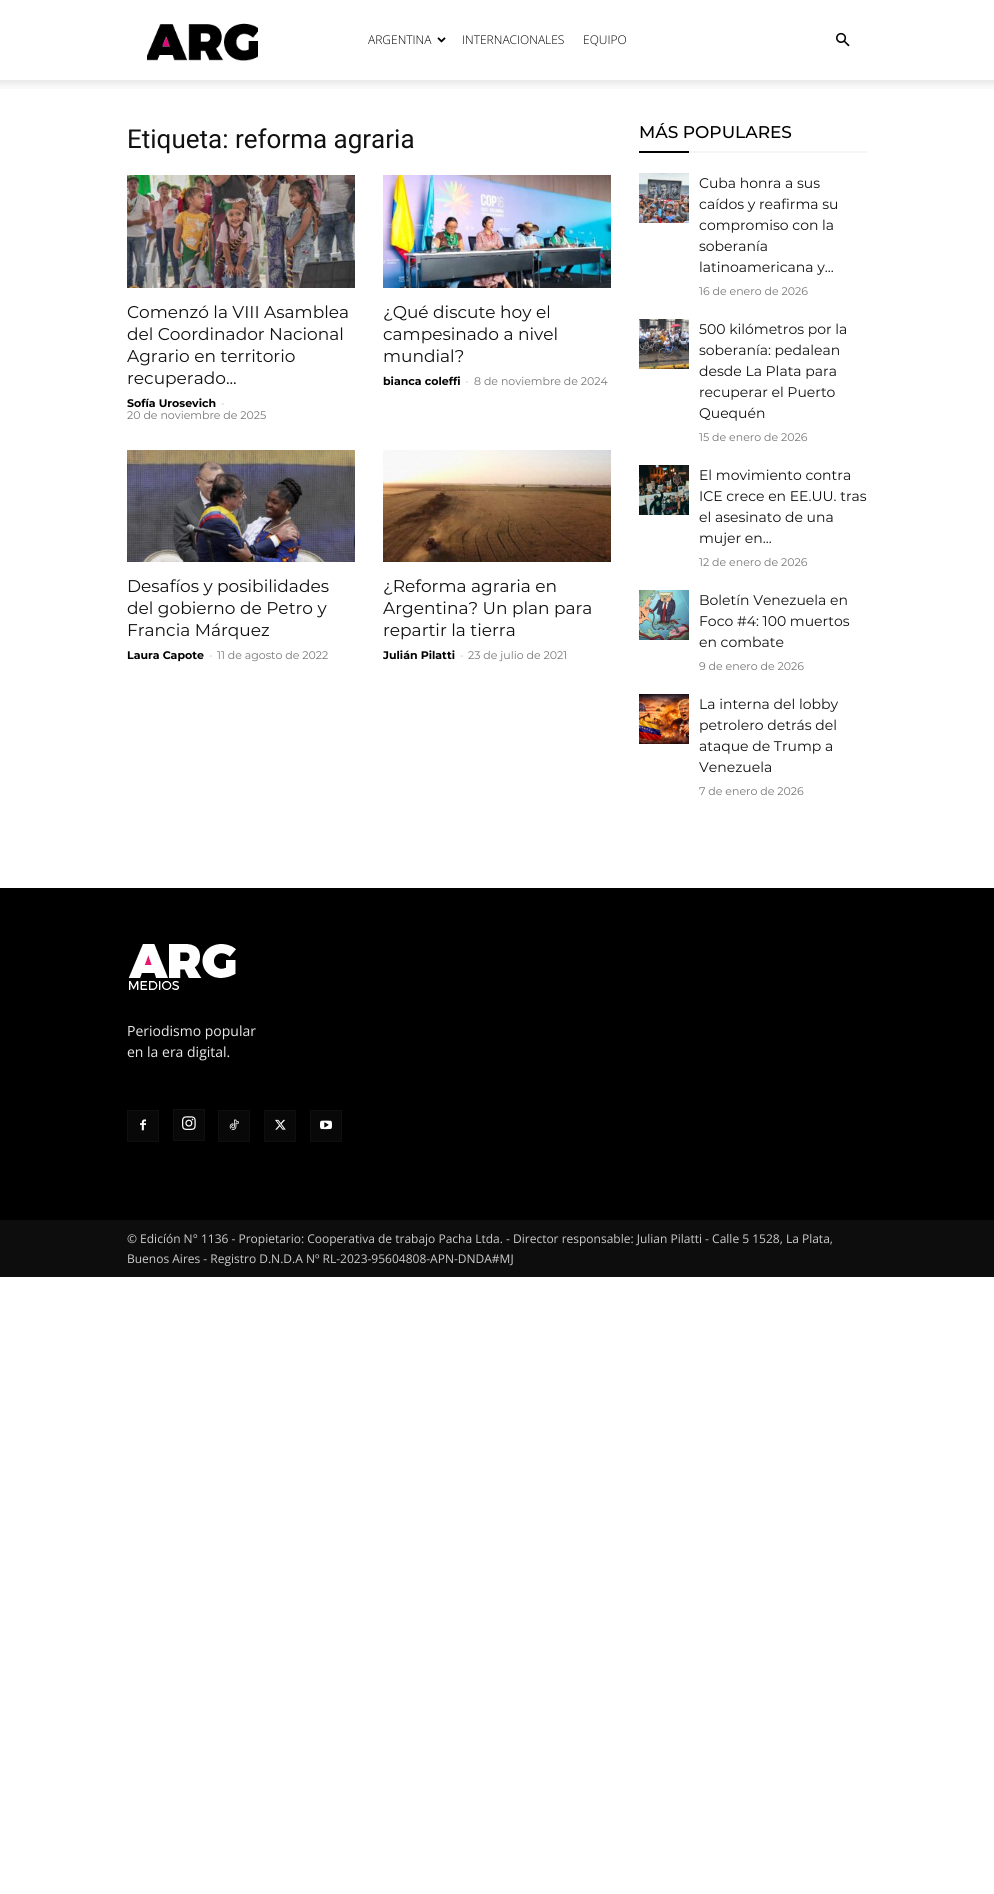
import math
import cairo



def draw_image(context, path, x, y, w, h):
    context.save()
    context.set_source_surface(cairo.ImageSurface.create_from_png(path), x, y)
    context.rectangle(x, y, w, h)
    context.fill()
    context.restore()


def draw(context):
    context.set_source_rgb(1, 1, 1)
    context.paint()
    draw_image(context, "images/1.png", 147, 23, 111, 38)
    draw_image(context, "images/2.png", 437, 37, 9, 6)
    draw_image(context, "images/3.png", 836, 32, 14, 15)
    draw_image(context, "images/4.png", 0, 80, 994, 9)
    draw_image(context, "images/5.png", 127, 175, 228, 113)
    draw_image(context, "images/6.png", 383, 175, 228, 113)
    draw_image(context, "images/7.png", 127, 450, 228, 112)
    draw_image(context, "images/8.png", 383, 450, 228, 112)
    context.set_source_rgb(0, 0, 0)
    context.rectangle(639, 151, 50, 2)
    context.fill()
    context.set_source_rgb(245 / 255, 245 / 255, 245 / 255)
    context.rectangle(689, 151, 178, 2)
    context.fill()
    draw_image(context, "images/9.png", 639, 173, 50, 50)
    draw_image(context, "images/10.png", 639, 319, 50, 50)
    draw_image(context, "images/11.png", 639, 465, 50, 50)
    draw_image(context, "images/12.png", 639, 590, 50, 50)
    draw_image(context, "images/13.png", 639, 694, 50, 50)
    context.set_source_rgb(0, 0, 0)
    context.rectangle(0, 888, 994, 332)
    context.fill()
    draw_image(context, "images/14.png", 128, 944, 108, 46)
    context.set_source_rgb(8 / 255, 8 / 255, 8 / 255)
    context.rectangle(128, 1111, 30, 30)
    context.fill()
    draw_image(context, "images/15.png", 140, 1119, 6, 12)
    context.rectangle(127.5, 1110.5, 31, 31)
    context.set_source_rgb(15 / 255, 15 / 255, 15 / 255)
    context.set_line_width(1)
    context.stroke()
    context.set_source_rgb(8 / 255, 8 / 255, 8 / 255)
    context.rectangle(174, 1110, 30, 30)
    context.fill()
    draw_image(context, "images/16.png", 182, 1116, 14, 14)
    context.rectangle(173.5, 1109.5, 31, 31)
    context.set_source_rgb(15 / 255, 15 / 255, 15 / 255)
    context.stroke()
    context.set_source_rgb(8 / 255, 8 / 255, 8 / 255)
    context.rectangle(219, 1111, 30, 30)
    context.fill()
    draw_image(context, "images/17.png", 229, 1119, 10, 11)
    context.rectangle(218.5, 1110.5, 31, 31)
    context.set_source_rgb(15 / 255, 15 / 255, 15 / 255)
    context.stroke()
    context.set_source_rgb(8 / 255, 8 / 255, 8 / 255)
    context.rectangle(265, 1111, 30, 30)
    context.fill()
    draw_image(context, "images/18.png", 275, 1119, 11, 11)
    context.rectangle(264.5, 1110.5, 31, 31)
    context.set_source_rgb(15 / 255, 15 / 255, 15 / 255)
    context.stroke()
    context.set_source_rgb(8 / 255, 8 / 255, 8 / 255)
    context.rectangle(311, 1111, 30, 30)
    context.fill()
    draw_image(context, "images/19.png", 320, 1120, 12, 10)
    context.rectangle(310.5, 1110.5, 31, 31)
    context.set_source_rgb(15 / 255, 15 / 255, 15 / 255)
    context.stroke()
    context.set_source_rgb(13 / 255, 13 / 255, 13 / 255)
    context.rectangle(0, 1220, 994, 57)
    context.fill()
    context.select_font_face("Open Sans Light")
    context.set_font_size(12)
    context.set_source_rgb(0, 0, 0)
    context.move_to(368, 44)
    context.show_text("ARGENTINA")
    context.move_to(462, 44)
    context.show_text("INTERNACIONALES")
    context.move_to(583, 44)
    context.show_text("EQUIPO")
    context.select_font_face("Roboto")
    context.set_font_size(26)
    context.set_source_rgb(17 / 255, 17 / 255, 17 / 255)
    context.move_to(127, 148)
    context.show_text("Etiqueta: reforma agraria")
    context.select_font_face("Montserrat")
    context.set_font_size(17)
    context.move_to(127, 318)
    context.show_text("Comenzó la VIII Asamblea")
    context.move_to(127, 340)
    context.show_text("del Coordinador Nacional")
    context.move_to(127, 362)
    context.show_text("Agrario en territorio")
    context.move_to(127, 384)
    context.show_text("recuperado...")
    context.select_font_face("Montserrat", cairo.FontSlant.NORMAL, cairo.FontWeight.BOLD)
    context.set_font_size(11)
    context.set_source_rgb(0, 0, 0)
    context.move_to(127, 407)
    context.show_text("Sofía Urosevich")
    context.select_font_face("Open Sans")
    context.set_source_rgb(204 / 255, 204 / 255, 204 / 255)
    context.move_to(221, 407)
    context.show_text("-")
    context.select_font_face("Montserrat")
    context.set_source_rgb(118 / 255, 118 / 255, 118 / 255)
    context.move_to(127, 419)
    context.show_text("20 de noviembre de 2025")
    context.set_font_size(17)
    context.set_source_rgb(17 / 255, 17 / 255, 17 / 255)
    context.move_to(383, 318)
    context.show_text("¿Qué discute hoy el")
    context.move_to(383, 340)
    context.show_text("campesinado a nivel")
    context.move_to(383, 362)
    context.show_text("mundial?")
    context.select_font_face("Montserrat", cairo.FontSlant.NORMAL, cairo.FontWeight.BOLD)
    context.set_font_size(11)
    context.set_source_rgb(0, 0, 0)
    context.move_to(383, 385)
    context.show_text("bianca coleffi")
    context.select_font_face("Open Sans")
    context.set_source_rgb(204 / 255, 204 / 255, 204 / 255)
    context.move_to(465, 385)
    context.show_text("-")
    context.select_font_face("Montserrat")
    context.set_source_rgb(118 / 255, 118 / 255, 118 / 255)
    context.move_to(474, 385)
    context.show_text("8 de noviembre de 2024")
    context.set_font_size(17)
    context.set_source_rgb(17 / 255, 17 / 255, 17 / 255)
    context.move_to(127, 592)
    context.show_text("Desafíos y posibilidades")
    context.move_to(127, 614)
    context.show_text("del gobierno de Petro y")
    context.move_to(127, 636)
    context.show_text("Francia Márquez")
    context.select_font_face("Montserrat", cairo.FontSlant.NORMAL, cairo.FontWeight.BOLD)
    context.set_font_size(11)
    context.set_source_rgb(0, 0, 0)
    context.move_to(127, 659)
    context.show_text("Laura Capote")
    context.select_font_face("Open Sans")
    context.set_source_rgb(204 / 255, 204 / 255, 204 / 255)
    context.move_to(209, 659)
    context.show_text("-")
    context.select_font_face("Montserrat")
    context.set_source_rgb(118 / 255, 118 / 255, 118 / 255)
    context.move_to(217, 659)
    context.show_text("11 de agosto de 2022")
    context.set_font_size(17)
    context.set_source_rgb(17 / 255, 17 / 255, 17 / 255)
    context.move_to(383, 592)
    context.show_text("¿Reforma agraria en")
    context.move_to(383, 614)
    context.show_text("Argentina? Un plan para")
    context.move_to(383, 636)
    context.show_text("repartir la tierra")
    context.select_font_face("Montserrat", cairo.FontSlant.NORMAL, cairo.FontWeight.BOLD)
    context.set_font_size(11)
    context.set_source_rgb(0, 0, 0)
    context.move_to(383, 659)
    context.show_text("Julián Pilatti")
    context.select_font_face("Open Sans")
    context.set_source_rgb(204 / 255, 204 / 255, 204 / 255)
    context.move_to(460, 659)
    context.show_text("-")
    context.select_font_face("Montserrat")
    context.set_source_rgb(118 / 255, 118 / 255, 118 / 255)
    context.move_to(468, 659)
    context.show_text("23 de julio de 2021")
    context.select_font_face("Montserrat Medium")
    context.set_font_size(17)
    context.set_source_rgb(0, 0, 0)
    context.move_to(639, 138)
    context.show_text("MÁS POPULARES")
    context.select_font_face("Montserrat")
    context.set_font_size(14)
    context.set_source_rgb(17 / 255, 17 / 255, 17 / 255)
    context.move_to(699, 188)
    context.show_text("Cuba honra a sus")
    context.move_to(699, 209)
    context.show_text("caídos y reafirma su")
    context.move_to(699, 230)
    context.show_text("compromiso con la")
    context.move_to(699, 251)
    context.show_text("soberanía")
    context.move_to(699, 272)
    context.show_text("latinoamericana y...")
    context.set_font_size(11)
    context.set_source_rgb(118 / 255, 118 / 255, 118 / 255)
    context.move_to(699, 295)
    context.show_text("16 de enero de 2026")
    context.set_font_size(14)
    context.set_source_rgb(17 / 255, 17 / 255, 17 / 255)
    context.move_to(699, 334)
    context.show_text("500 kilómetros por la")
    context.move_to(699, 355)
    context.show_text("soberanía: pedalean")
    context.move_to(699, 376)
    context.show_text("desde La Plata para")
    context.move_to(699, 397)
    context.show_text("recuperar el Puerto")
    context.move_to(699, 418)
    context.show_text("Quequén")
    context.set_font_size(11)
    context.set_source_rgb(118 / 255, 118 / 255, 118 / 255)
    context.move_to(699, 441)
    context.show_text("15 de enero de 2026")
    context.set_font_size(14)
    context.set_source_rgb(17 / 255, 17 / 255, 17 / 255)
    context.move_to(699, 480)
    context.show_text("El movimiento contra")
    context.move_to(699, 501)
    context.show_text("ICE crece en EE.UU. tras")
    context.move_to(699, 522)
    context.show_text("el asesinato de una")
    context.move_to(699, 543)
    context.show_text("mujer en...")
    context.set_font_size(11)
    context.set_source_rgb(118 / 255, 118 / 255, 118 / 255)
    context.move_to(699, 566)
    context.show_text("12 de enero de 2026")
    context.set_font_size(14)
    context.set_source_rgb(17 / 255, 17 / 255, 17 / 255)
    context.move_to(699, 605)
    context.show_text("Boletín Venezuela en")
    context.move_to(699, 626)
    context.show_text("Foco #4: 100 muertos")
    context.move_to(699, 647)
    context.show_text("en combate")
    context.set_font_size(11)
    context.set_source_rgb(118 / 255, 118 / 255, 118 / 255)
    context.move_to(699, 670)
    context.show_text("9 de enero de 2026")
    context.set_font_size(14)
    context.set_source_rgb(17 / 255, 17 / 255, 17 / 255)
    context.move_to(699, 709)
    context.show_text("La interna del lobby")
    context.move_to(699, 730)
    context.show_text("petrolero detrás del")
    context.move_to(699, 751)
    context.show_text("ataque de Trump a")
    context.move_to(699, 772)
    context.show_text("Venezuela")
    context.set_font_size(11)
    context.set_source_rgb(118 / 255, 118 / 255, 118 / 255)
    context.move_to(699, 795)
    context.show_text("7 de enero de 2026")
    context.select_font_face("Open Sans")
    context.set_font_size(14)
    context.set_source_rgb(234 / 255, 234 / 255, 234 / 255)
    context.move_to(127, 1036)
    context.show_text("Periodismo popular")
    context.move_to(127, 1057)
    context.show_text("en la era digital.")
    context.set_font_size(12)
    context.set_source_rgb(204 / 255, 204 / 255, 204 / 255)
    context.move_to(127, 1243)
    context.show_text("© Edicíón N° 1136 - Propietario: Cooperativa de trabajo Pacha Ltda. - Director responsable: Julian Pilatti - Calle 5 1528, La Plata,")
    context.move_to(127, 1263)
    context.show_text("Buenos Aires - Registro D.N.D.A Nº RL-2023-95604808-APN-DNDA#MJ")


surface = cairo.ImageSurface(cairo.Format.RGB24, 994, 1894)
context = cairo.Context(surface)
options = cairo.FontOptions()
options.set_hint_metrics(cairo.HintMetrics.OFF)
options.set_hint_style(cairo.HintStyle.NONE)
context.set_font_options(options)
context.set_miter_limit(4)
draw(context)
surface.write_to_png("out.png")
